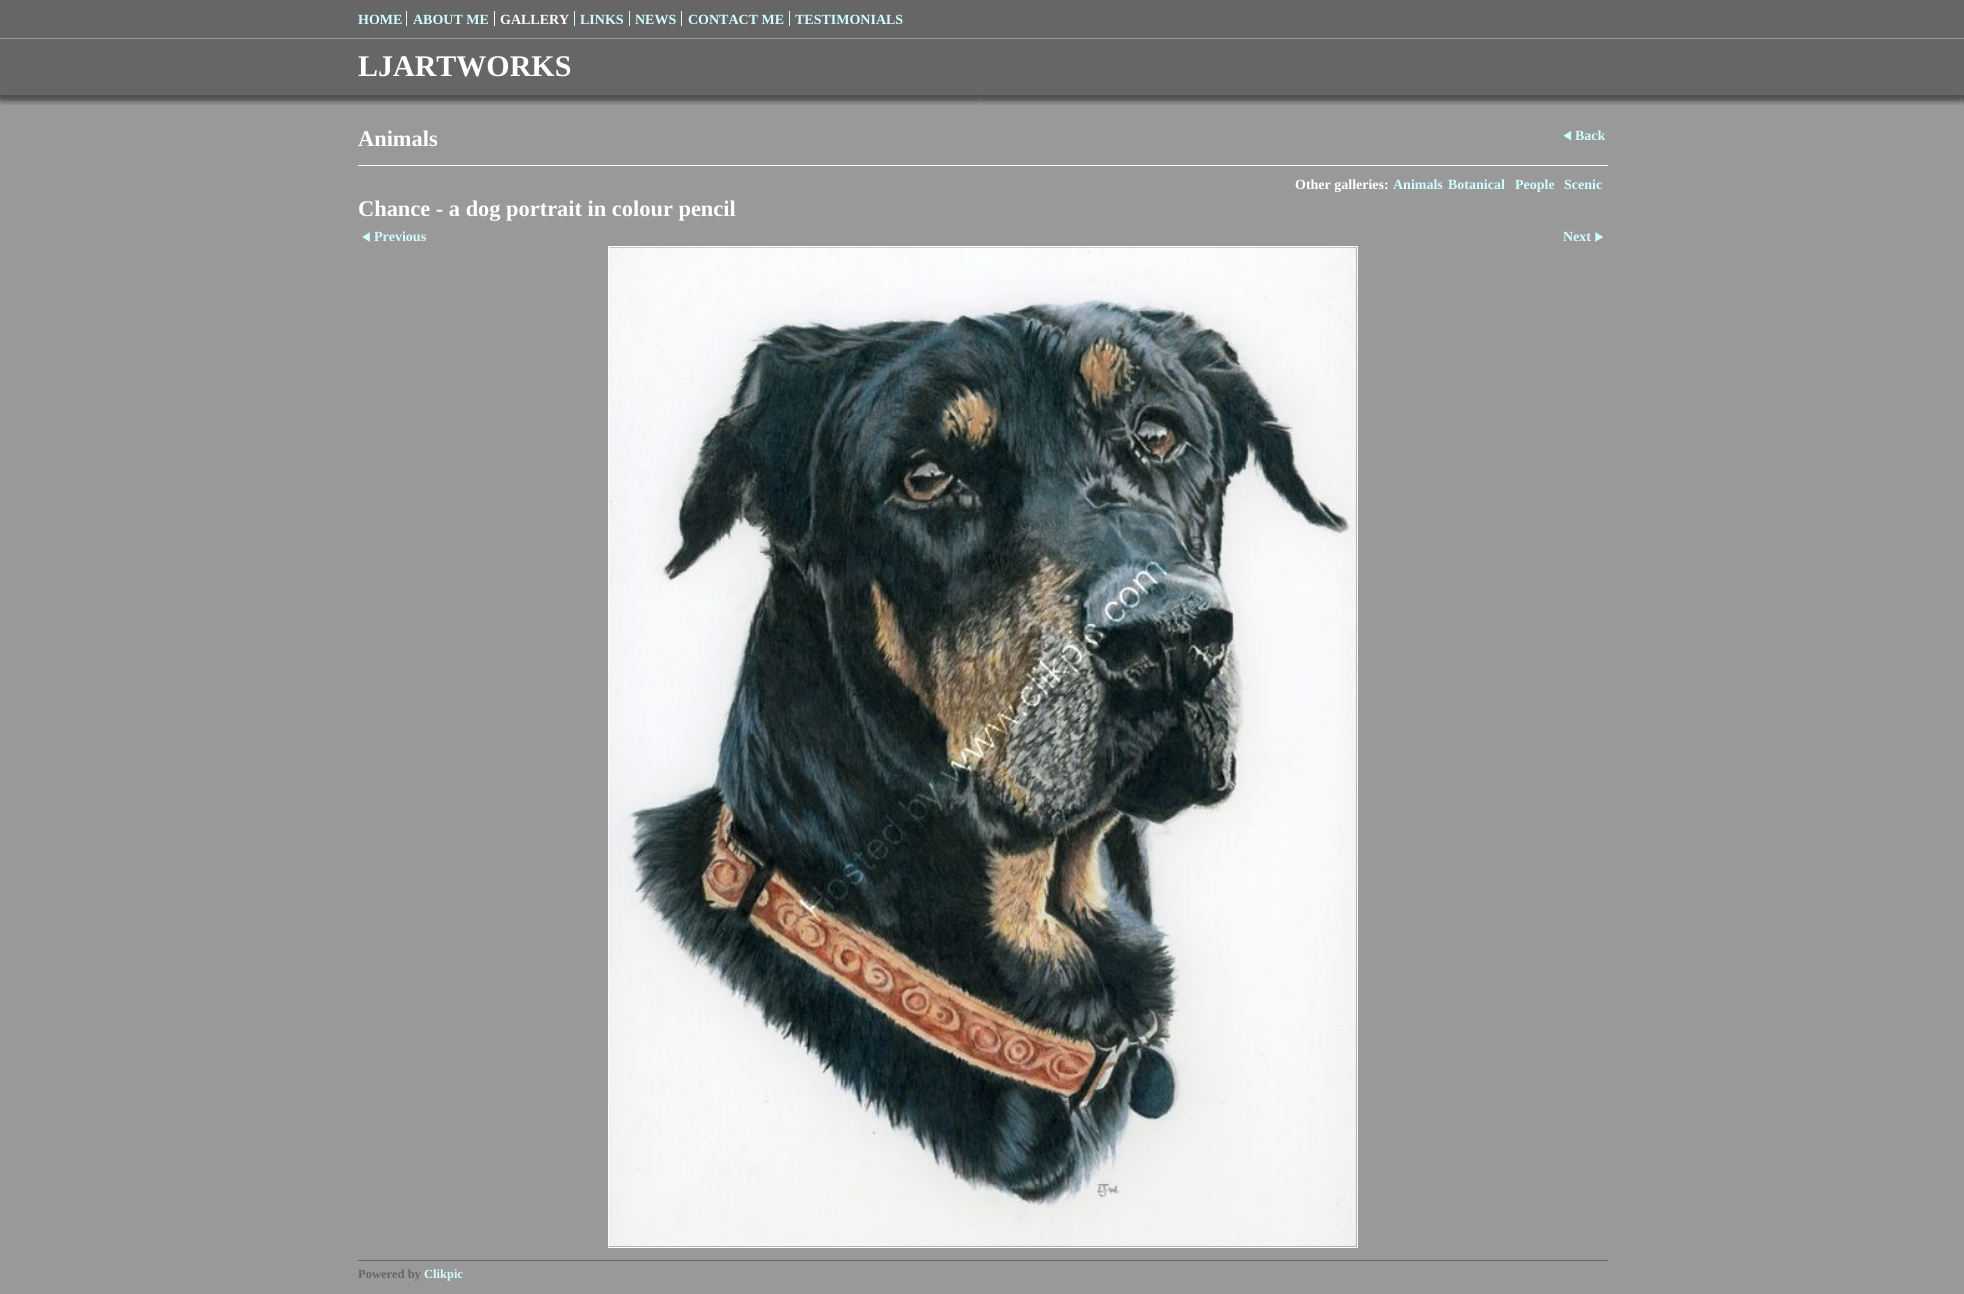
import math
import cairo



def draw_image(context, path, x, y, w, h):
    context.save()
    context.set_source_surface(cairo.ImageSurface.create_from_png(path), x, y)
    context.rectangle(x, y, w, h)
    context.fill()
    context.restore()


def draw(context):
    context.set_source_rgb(153 / 255, 153 / 255, 153 / 255)
    context.paint()
    context.set_source_rgb(102 / 255, 102 / 255, 102 / 255)
    context.rectangle(0, 0, 1964, 38)
    context.fill()
    context.set_source_rgb(207 / 255, 1, 1)
    context.rectangle(406, 11, 1, 15)
    context.fill()
    context.set_source_rgb(1, 1, 1)
    context.rectangle(494, 11, 1, 15)
    context.fill()
    context.set_source_rgb(207 / 255, 1, 1)
    context.rectangle(574, 11, 1, 15)
    context.fill()
    context.rectangle(629, 11, 1, 15)
    context.fill()
    context.rectangle(681, 11, 1, 15)
    context.fill()
    context.rectangle(789, 11, 1, 15)
    context.fill()
    context.set_source_rgb(102 / 255, 102 / 255, 102 / 255)
    context.rectangle(0, 39, 1964, 56)
    context.fill()
    draw_image(context, "images/1.png", 0, 95, 1964, 10)
    context.set_source_rgb(1, 1, 1)
    context.rectangle(358, 165, 1250, 1)
    context.fill()
    draw_image(context, "images/2.png", 1563, 131, 9, 10)
    draw_image(context, "images/3.png", 362, 232, 8, 10)
    draw_image(context, "images/4.png", 1595, 232, 8, 10)
    context.rectangle(608.5, 246.5, 749, 1001)
    context.set_line_width(1)
    context.stroke()
    draw_image(context, "images/5.png", 608, 247, 749, 1000)
    context.set_source_rgb(102 / 255, 102 / 255, 102 / 255)
    context.rectangle(358, 1260, 1250, 1)
    context.fill()
    context.select_font_face("Liberation Serif", cairo.FontSlant.NORMAL, cairo.FontWeight.BOLD)
    context.set_font_size(14)
    context.set_source_rgb(207 / 255, 1, 1)
    context.move_to(358, 24)
    context.show_text("HOME")
    context.move_to(413, 24)
    context.show_text("ABOUT ME")
    context.set_source_rgb(1, 1, 1)
    context.move_to(500, 24)
    context.show_text("GALLERY")
    context.set_source_rgb(207 / 255, 1, 1)
    context.move_to(580, 24)
    context.show_text("LINKS")
    context.move_to(635, 24)
    context.show_text("NEWS")
    context.move_to(688, 24)
    context.show_text("CONTACT ME")
    context.move_to(795, 24)
    context.show_text("TESTIMONIALS")
    context.set_font_size(30)
    context.set_source_rgb(1, 1, 1)
    context.move_to(358, 76)
    context.show_text("LJARTWORKS")
    context.set_font_size(22.4)
    context.move_to(358, 146)
    context.show_text("Animals")
    context.set_font_size(14)
    context.set_source_rgb(207 / 255, 1, 1)
    context.move_to(1575, 140)
    context.show_text("Back")
    context.set_source_rgb(1, 1, 1)
    context.move_to(1295, 189)
    context.show_text("Other galleries:")
    context.set_source_rgb(207 / 255, 1, 1)
    context.move_to(1393, 189)
    context.show_text("Animals")
    context.move_to(1448, 189)
    context.show_text("Botanical")
    context.move_to(1515, 189)
    context.show_text("People")
    context.move_to(1564, 189)
    context.show_text("Scenic")
    context.set_font_size(22.4)
    context.set_source_rgb(1, 1, 1)
    context.move_to(358, 216)
    context.show_text("Chance - a dog portrait in colour pencil")
    context.set_font_size(14)
    context.set_source_rgb(207 / 255, 1, 1)
    context.move_to(374, 241)
    context.show_text("Previous")
    context.move_to(1563, 241)
    context.show_text("Next")
    context.set_font_size(12.5)
    context.set_source_rgb(102 / 255, 102 / 255, 102 / 255)
    context.move_to(358, 1278)
    context.show_text("Powered by")
    context.set_source_rgb(207 / 255, 1, 1)
    context.move_to(424, 1278)
    context.show_text("Clikpic")


surface = cairo.ImageSurface(cairo.Format.RGB24, 1964, 1294)
context = cairo.Context(surface)
options = cairo.FontOptions()
options.set_hint_metrics(cairo.HintMetrics.OFF)
options.set_hint_style(cairo.HintStyle.NONE)
context.set_font_options(options)
context.set_miter_limit(4)
draw(context)
surface.write_to_png("out.png")
